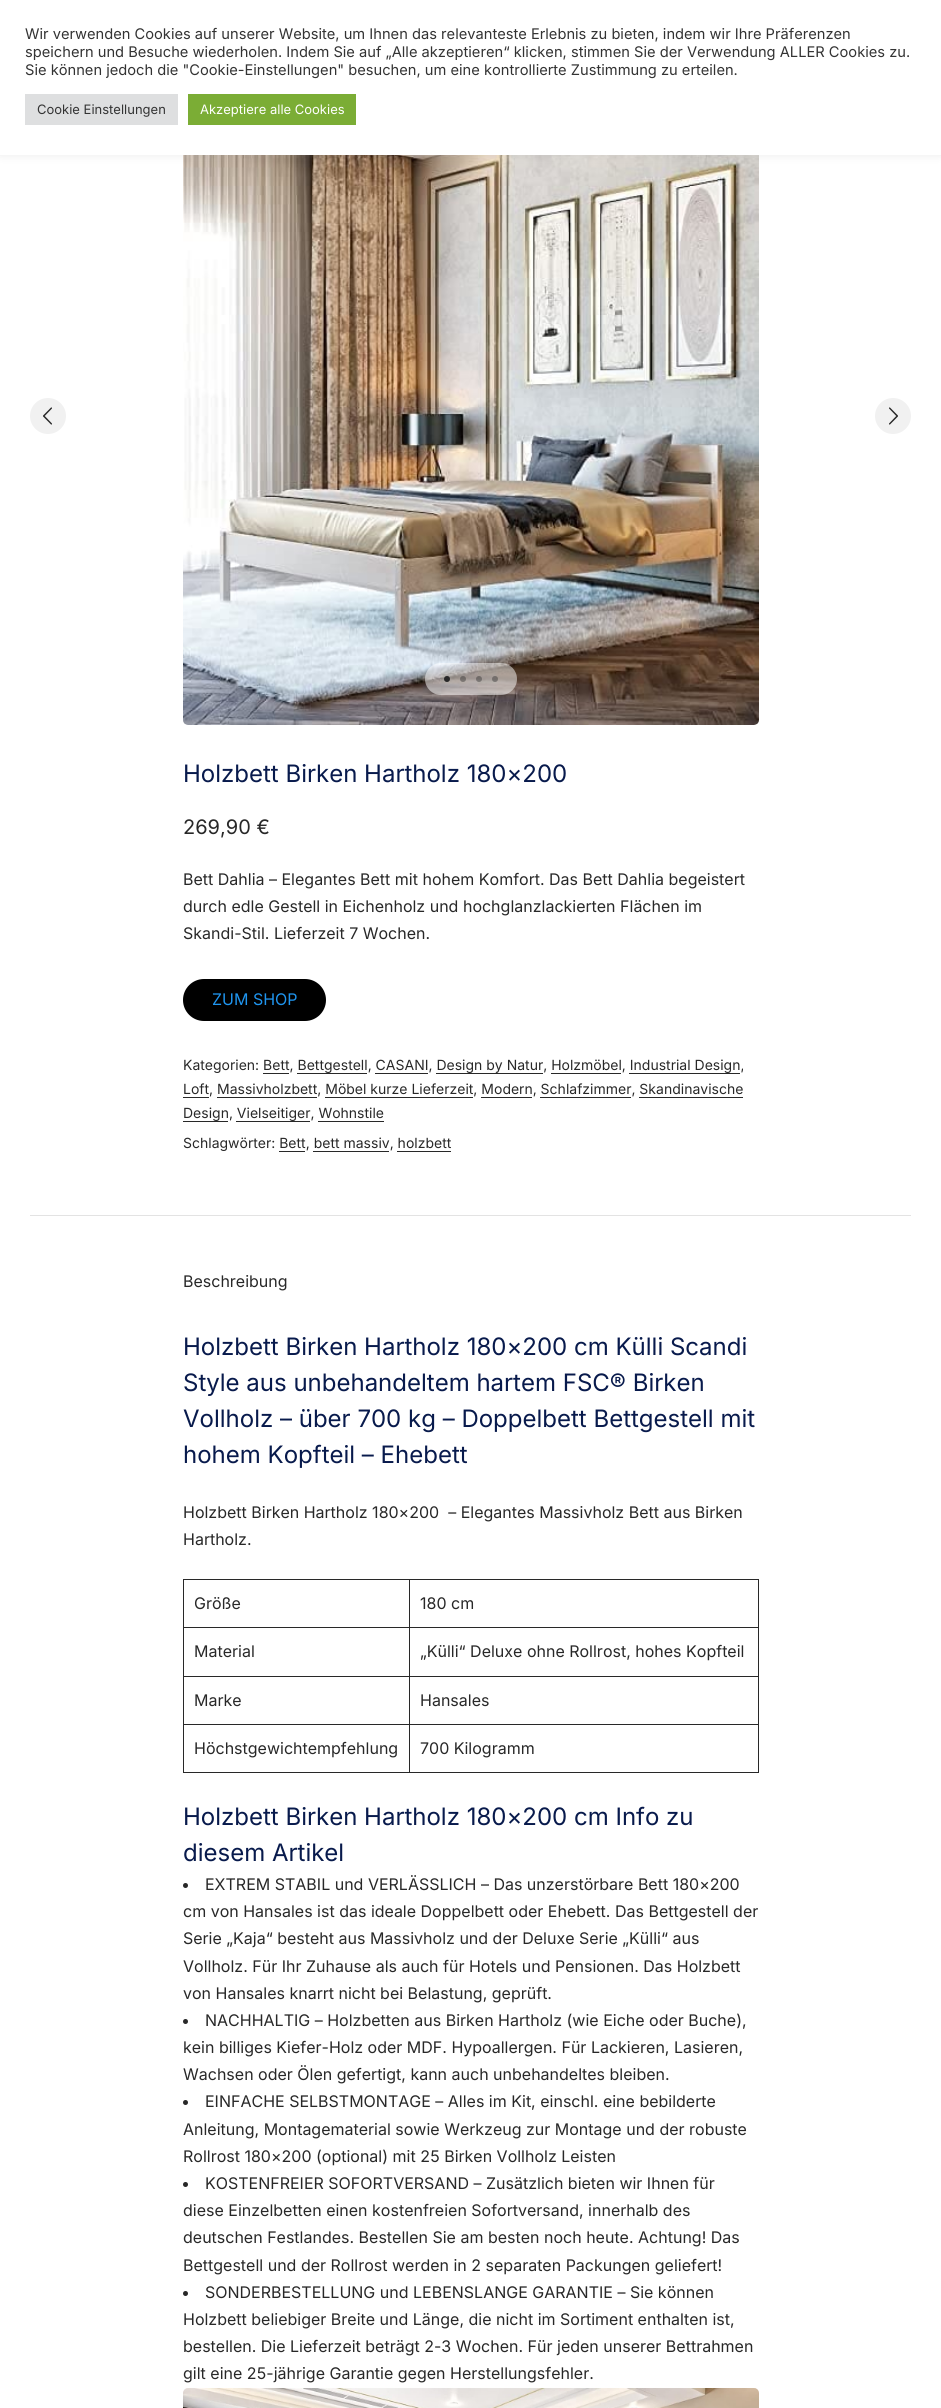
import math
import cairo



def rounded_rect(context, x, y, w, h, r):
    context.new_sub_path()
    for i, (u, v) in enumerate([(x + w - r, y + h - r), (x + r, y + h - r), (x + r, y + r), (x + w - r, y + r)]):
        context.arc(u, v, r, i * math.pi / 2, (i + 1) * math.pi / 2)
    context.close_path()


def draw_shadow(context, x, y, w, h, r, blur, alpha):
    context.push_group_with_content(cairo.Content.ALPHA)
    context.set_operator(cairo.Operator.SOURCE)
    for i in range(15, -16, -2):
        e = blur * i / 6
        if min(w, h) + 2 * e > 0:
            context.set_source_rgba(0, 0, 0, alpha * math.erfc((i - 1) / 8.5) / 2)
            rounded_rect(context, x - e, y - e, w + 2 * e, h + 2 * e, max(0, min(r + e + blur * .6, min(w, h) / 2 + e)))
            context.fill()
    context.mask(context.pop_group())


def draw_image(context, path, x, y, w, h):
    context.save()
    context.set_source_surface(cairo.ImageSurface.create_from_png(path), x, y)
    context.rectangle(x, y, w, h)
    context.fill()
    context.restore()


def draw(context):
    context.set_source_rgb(1, 1, 1)
    context.paint()
    draw_image(context, "images/1.png", 183, 155, 576, 570)
    context.set_source_rgb(172 / 255, 171 / 255, 171 / 255)
    draw_shadow(context, 0, -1, 941, 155, 0, 5, 0.3)
    context.set_source_rgb(1, 1, 1)
    context.rectangle(0, 0, 941, 155)
    context.fill()
    context.set_source_rgb(222 / 255, 223 / 255, 224 / 255)
    context.rectangle(25, 94, 153, 31)
    context.fill()
    context.set_source_rgb(123 / 255, 173 / 255, 53 / 255)
    context.rectangle(188, 94, 168, 31)
    context.fill()
    context.set_source_rgb(241 / 255, 241 / 255, 241 / 255)
    context.arc(48, 416, 18, 0, 2 * math.pi)
    context.fill()
    draw_image(context, "images/2.png", 43, 407, 9, 18)
    context.arc(893, 416, 18, 0, 2 * math.pi)
    context.fill()
    draw_image(context, "images/3.png", 889, 407, 9, 18)
    context.set_source_rgba(1, 1, 1, 0.5)
    rounded_rect(context, 425, 663, 92, 32, 16)
    context.fill()
    context.set_source_rgb(40 / 255, 40 / 255, 40 / 255)
    context.arc(447, 679, 3, 0, 2 * math.pi)
    context.fill()
    context.set_source_rgba(40 / 255, 40 / 255, 40 / 255, 0.4)
    context.arc(463, 679, 3, 0, 2 * math.pi)
    context.fill()
    context.arc(479, 679, 3, 0, 2 * math.pi)
    context.fill()
    context.arc(495, 679, 3, 0, 2 * math.pi)
    context.fill()
    context.set_source_rgb(0, 0, 0)
    rounded_rect(context, 183, 979, 143, 42, 21)
    context.fill()
    context.set_source_rgb(40 / 255, 40 / 255, 40 / 255)
    context.rectangle(263, 1073, 26, 1)
    context.fill()
    context.rectangle(297, 1073, 70, 1)
    context.fill()
    context.rectangle(375, 1073, 53, 1)
    context.fill()
    context.rectangle(436, 1073, 107, 1)
    context.fill()
    context.rectangle(551, 1073, 70, 1)
    context.fill()
    context.rectangle(629, 1073, 111, 1)
    context.fill()
    context.rectangle(183, 1097, 26, 1)
    context.fill()
    context.rectangle(217, 1097, 100, 1)
    context.fill()
    context.rectangle(325, 1097, 148, 1)
    context.fill()
    context.rectangle(481, 1097, 51, 1)
    context.fill()
    context.rectangle(540, 1097, 91, 1)
    context.fill()
    context.rectangle(639, 1097, 104, 1)
    context.fill()
    context.rectangle(183, 1121, 45, 1)
    context.fill()
    context.rectangle(236, 1121, 74, 1)
    context.fill()
    context.rectangle(318, 1121, 66, 1)
    context.fill()
    context.rectangle(279, 1151, 26, 1)
    context.fill()
    context.rectangle(313, 1151, 76, 1)
    context.fill()
    context.rectangle(397, 1151, 54, 1)
    context.fill()
    context.set_source_rgb(227 / 255, 227 / 255, 227 / 255)
    context.rectangle(30, 1215, 881, 1)
    context.fill()
    context.set_source_rgb(40 / 255, 40 / 255, 40 / 255)
    context.rectangle(409, 1579, 350, 1)
    context.fill()
    context.rectangle(409, 1627, 350, 1)
    context.fill()
    context.rectangle(409, 1676, 350, 1)
    context.fill()
    context.rectangle(409, 1724, 350, 1)
    context.fill()
    context.rectangle(758, 1724, 1, 49)
    context.fill()
    context.rectangle(409, 1772, 350, 1)
    context.fill()
    context.rectangle(409, 1724, 1, 49)
    context.fill()
    context.rectangle(183, 1724, 227, 1)
    context.fill()
    context.rectangle(409, 1676, 1, 49)
    context.fill()
    context.rectangle(183, 1676, 227, 1)
    context.fill()
    context.rectangle(409, 1627, 1, 50)
    context.fill()
    context.rectangle(183, 1627, 227, 1)
    context.fill()
    context.rectangle(409, 1579, 1, 49)
    context.fill()
    context.rectangle(183, 1579, 227, 1)
    context.fill()
    context.rectangle(183, 1772, 227, 1)
    context.fill()
    context.rectangle(183, 1724, 1, 49)
    context.fill()
    context.rectangle(183, 1676, 1, 49)
    context.fill()
    context.rectangle(183, 1627, 1, 50)
    context.fill()
    context.rectangle(183, 1579, 1, 49)
    context.fill()
    context.rectangle(758, 1676, 1, 49)
    context.fill()
    context.rectangle(758, 1627, 1, 50)
    context.fill()
    context.rectangle(758, 1579, 1, 49)
    context.fill()
    context.arc(185.5, 1885.5, 2.5, 0, 2 * math.pi)
    context.fill()
    context.arc(185.5, 2021.5, 2.5, 0, 2 * math.pi)
    context.fill()
    context.arc(185.5, 2102.5, 2.5, 0, 2 * math.pi)
    context.fill()
    context.arc(185.5, 2184.5, 2.5, 0, 2 * math.pi)
    context.fill()
    context.arc(185.5, 2293.5, 2.5, 0, 2 * math.pi)
    context.fill()
    draw_image(context, "images/4.png", 183, 2388, 576, 20)
    context.select_font_face("Inter")
    context.set_font_size(14.67)
    context.set_source_rgb(51 / 255, 51 / 255, 51 / 255)
    context.move_to(25, 39)
    context.show_text("Wir verwenden Cookies auf unserer Website, um Ihnen das relevanteste Erlebnis zu bieten, indem wir Ihre Präferenzen")
    context.move_to(25, 57)
    context.show_text("speichern und Besuche wiederholen. Indem Sie auf „Alle akzeptieren“ klicken, stimmen Sie der Verwendung ALLER Cookies zu.")
    context.move_to(25, 75)
    context.show_text("Sie können jedoch die \"Cookie-Einstellungen\" besuchen, um eine kontrollierte Zustimmung zu erteilen.")
    context.set_font_size(13)
    context.move_to(37, 114)
    context.show_text("Cookie Einstellungen")
    context.set_source_rgb(1, 1, 1)
    context.move_to(200, 114)
    context.show_text("Akzeptiere alle Cookies")
    context.set_font_size(24)
    context.set_source_rgb(8 / 255, 26 / 255, 76 / 255)
    context.move_to(183, 782)
    context.show_text("Holzbett Birken Hartholz 180×200")
    context.set_font_size(20)
    context.set_source_rgb(40 / 255, 40 / 255, 40 / 255)
    context.move_to(183, 834)
    context.show_text("269,90 €")
    context.set_font_size(16)
    context.move_to(183, 885)
    context.show_text("Bett Dahlia – Elegantes Bett mit hohem Komfort. Das Bett Dahlia begeistert")
    context.move_to(183, 912)
    context.show_text("durch edle Gestell in Eichenholz und hochglanzlackierten Flächen im")
    context.move_to(183, 939)
    context.show_text("Skandi-Stil. Lieferzeit 7 Wochen.")
    context.set_source_rgb(31 / 255, 149 / 255, 239 / 255)
    context.move_to(212, 1005)
    context.show_text("ZUM SHOP")
    context.set_font_size(14)
    context.set_source_rgb(40 / 255, 40 / 255, 40 / 255)
    context.move_to(183, 1070)
    context.show_text("Kategorien: Bett, Bettgestell, CASANI, Design by Natur, Holzmöbel, Industrial Design,")
    context.move_to(183, 1094)
    context.show_text("Loft, Massivholzbett, Möbel kurze Lieferzeit, Modern, Schlafzimmer, Skandinavische")
    context.move_to(183, 1118)
    context.show_text("Design, Vielseitiger, Wohnstile")
    context.move_to(183, 1148)
    context.show_text("Schlagwörter: Bett, bett massiv, holzbett")
    context.set_font_size(16)
    context.move_to(183, 1287)
    context.show_text("Beschreibung")
    context.set_font_size(24)
    context.set_source_rgb(8 / 255, 26 / 255, 76 / 255)
    context.move_to(183, 1355)
    context.show_text("Holzbett Birken Hartholz 180×200 cm Külli Scandi")
    context.move_to(183, 1391)
    context.show_text("Style aus unbehandeltem hartem FSC® Birken")
    context.move_to(183, 1427)
    context.show_text("Vollholz – über 700 kg – Doppelbett Bettgestell mit")
    context.move_to(183, 1463)
    context.show_text("hohem Kopfteil – Ehebett")
    context.set_font_size(16)
    context.set_source_rgb(40 / 255, 40 / 255, 40 / 255)
    context.move_to(183, 1518)
    context.show_text("Holzbett Birken Hartholz 180×200  – Elegantes Massivholz Bett aus Birken")
    context.move_to(183, 1545)
    context.show_text("Hartholz.")
    context.move_to(194, 1609)
    context.show_text("Größe")
    context.move_to(420, 1609)
    context.show_text("180 cm")
    context.move_to(194, 1657)
    context.show_text("Material")
    context.move_to(420, 1657)
    context.show_text("„Külli“ Deluxe ohne Rollrost, hohes Kopfteil")
    context.move_to(194, 1706)
    context.show_text("Marke")
    context.move_to(420, 1706)
    context.show_text("Hansales")
    context.move_to(194, 1754)
    context.show_text("Höchstgewichtempfehlung")
    context.move_to(420, 1754)
    context.show_text("700 Kilogramm")
    context.set_font_size(24)
    context.set_source_rgb(8 / 255, 26 / 255, 76 / 255)
    context.move_to(183, 1825)
    context.show_text("Holzbett Birken Hartholz 180×200 cm Info zu")
    context.move_to(183, 1861)
    context.show_text("diesem Artikel")
    context.set_font_size(16)
    context.set_source_rgb(40 / 255, 40 / 255, 40 / 255)
    context.move_to(205, 1890)
    context.show_text("EXTREM STABIL und VERLÄSSLICH – Das unzerstörbare Bett 180×200")
    context.move_to(183, 1917)
    context.show_text("cm von Hansales ist das ideale Doppelbett oder Ehebett. Das Bettgestell der")
    context.move_to(183, 1944)
    context.show_text("Serie „Kaja“ besteht aus Massivholz und der Deluxe Serie „Külli“ aus")
    context.move_to(183, 1972)
    context.show_text("Vollholz. Für Ihr Zuhause als auch für Hotels und Pensionen. Das Holzbett")
    context.move_to(183, 1999)
    context.show_text("von Hansales knarrt nicht bei Belastung, geprüft.")
    context.move_to(205, 2026)
    context.show_text("NACHHALTIG – Holzbetten aus Birken Hartholz (wie Eiche oder Buche),")
    context.move_to(183, 2053)
    context.show_text("kein billiges Kiefer-Holz oder MDF. Hypoallergen. Für Lackieren, Lasieren,")
    context.move_to(183, 2080)
    context.show_text("Wachsen oder Ölen gefertigt, kann auch unbehandeltes bleiben.")
    context.move_to(205, 2107)
    context.show_text("EINFACHE SELBSTMONTAGE – Alles im Kit, einschl. eine bebilderte")
    context.move_to(183, 2135)
    context.show_text("Anleitung, Montagematerial sowie Werkzeug zur Montage und der robuste")
    context.move_to(183, 2162)
    context.show_text("Rollrost 180×200 (optional) mit 25 Birken Vollholz Leisten")
    context.move_to(205, 2189)
    context.show_text("KOSTENFREIER SOFORTVERSAND – Zusätzlich bieten wir Ihnen für")
    context.move_to(183, 2216)
    context.show_text("diese Einzelbetten einen kostenfreien Sofortversand, innerhalb des")
    context.move_to(183, 2243)
    context.show_text("deutschen Festlandes. Bestellen Sie am besten noch heute. Achtung! Das")
    context.move_to(183, 2271)
    context.show_text("Bettgestell und der Rollrost werden in 2 separaten Packungen geliefert!")
    context.move_to(205, 2298)
    context.show_text("SONDERBESTELLUNG und LEBENSLANGE GARANTIE – Sie können")
    context.move_to(183, 2325)
    context.show_text("Holzbett beliebiger Breite und Länge, die nicht im Sortiment enthalten ist,")
    context.move_to(183, 2352)
    context.show_text("bestellen. Die Lieferzeit beträgt 2-3 Wochen. Für jeden unserer Bettrahmen")
    context.move_to(183, 2379)
    context.show_text("gilt eine 25-jährige Garantie gegen Herstellungsfehler.")


surface = cairo.ImageSurface(cairo.Format.RGB24, 941, 2408)
context = cairo.Context(surface)
options = cairo.FontOptions()
options.set_hint_metrics(cairo.HintMetrics.OFF)
options.set_hint_style(cairo.HintStyle.NONE)
context.set_font_options(options)
context.set_miter_limit(4)
draw(context)
surface.write_to_png("out.png")
